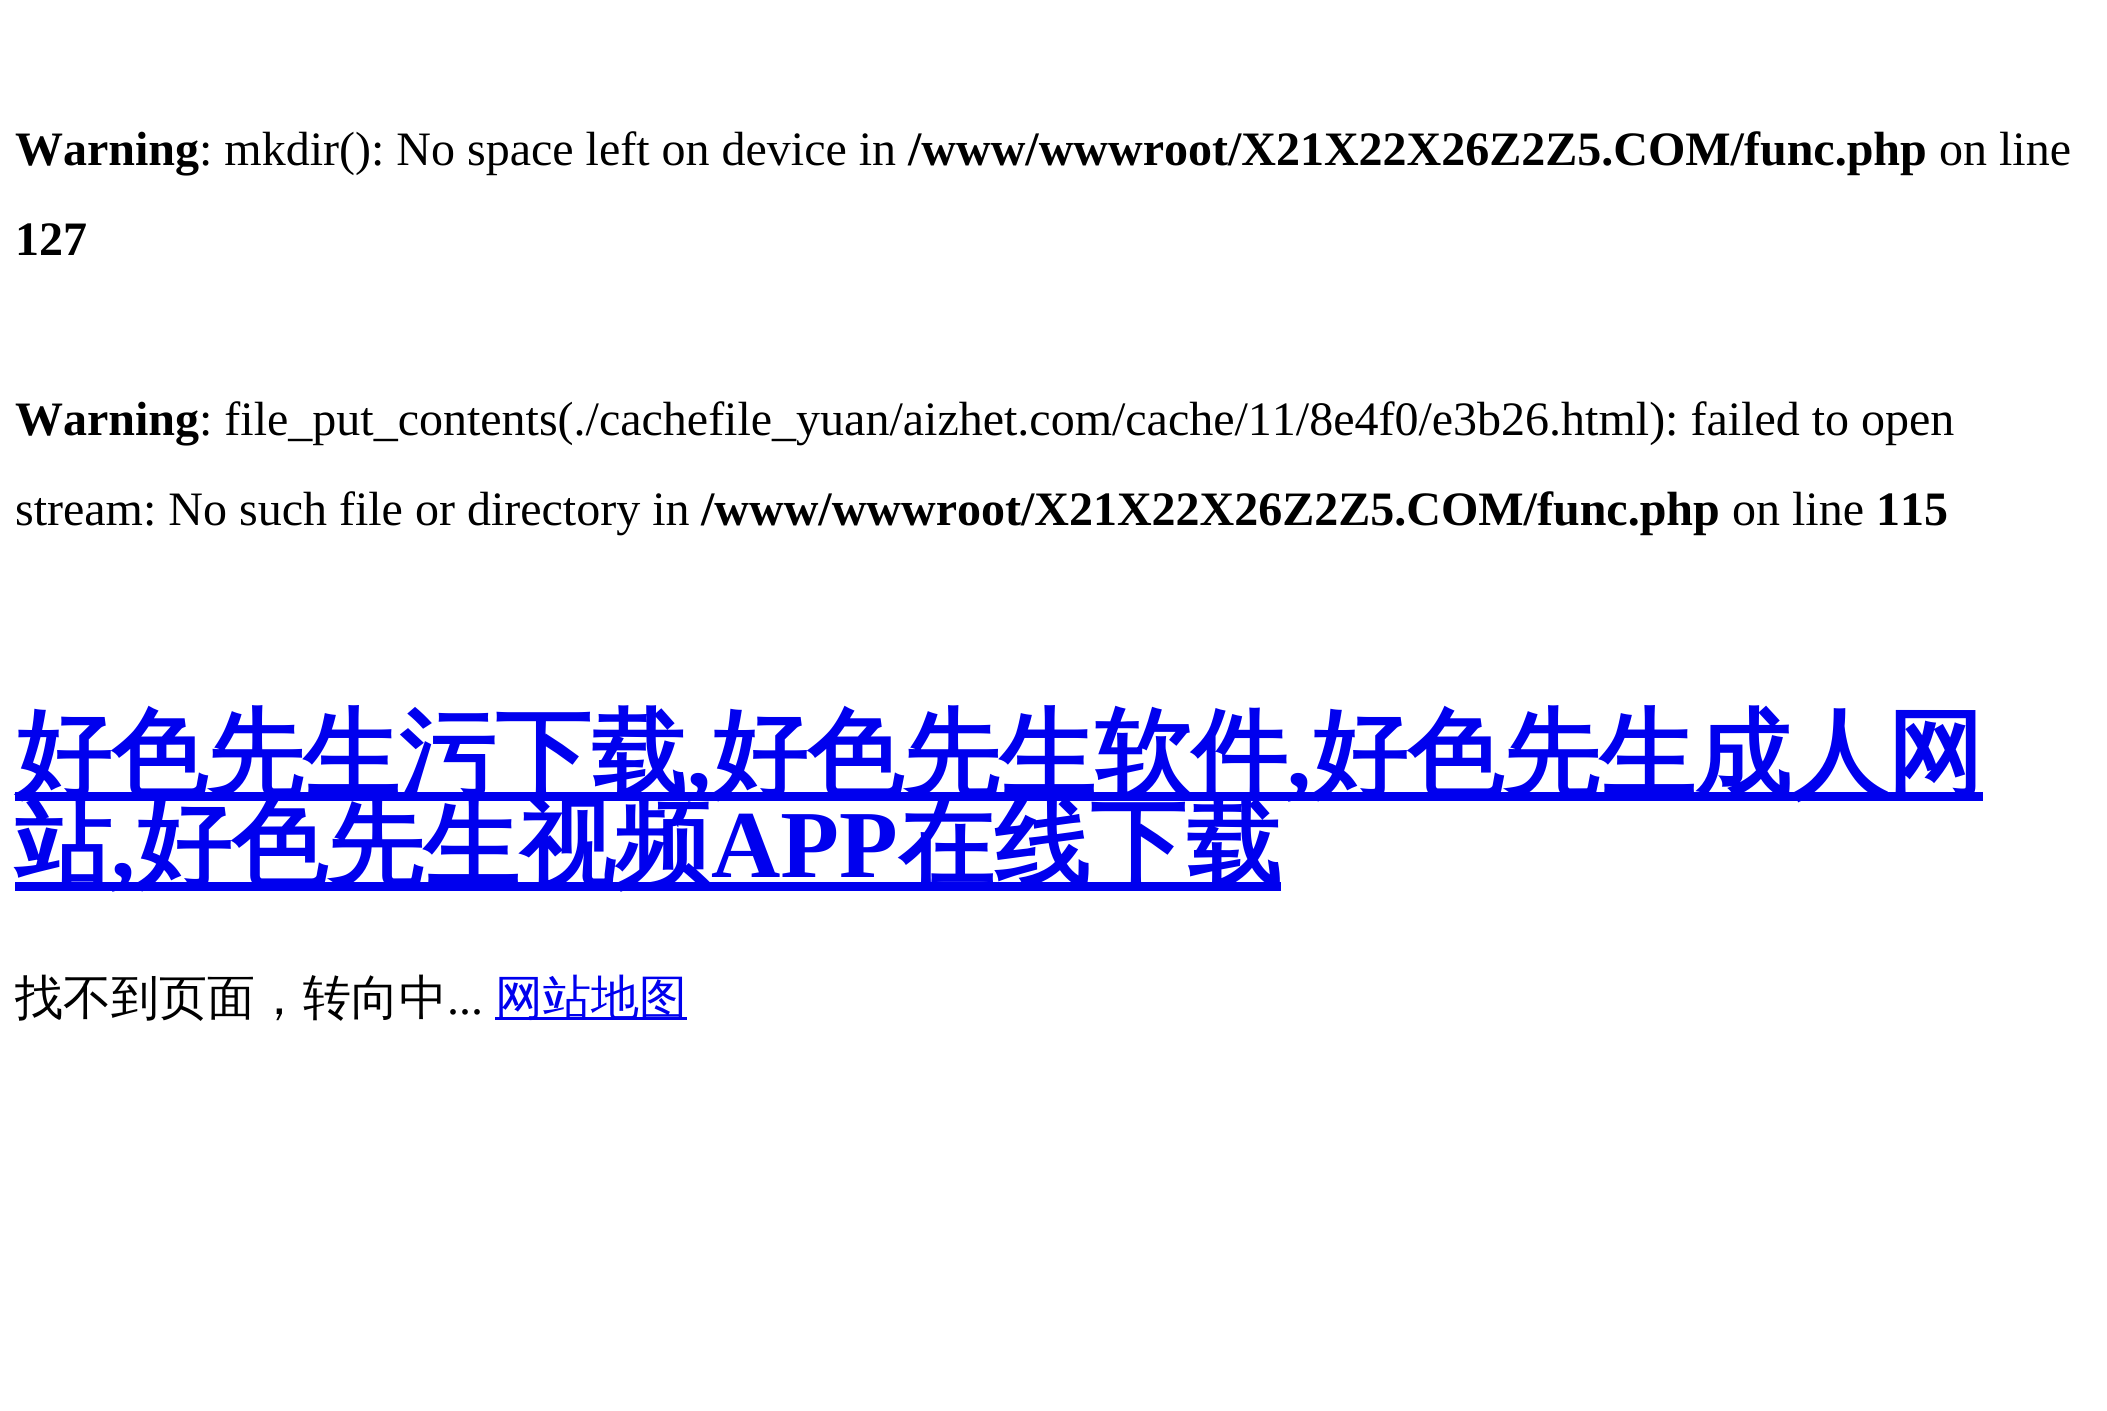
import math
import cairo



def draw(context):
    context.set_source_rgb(1, 1, 1)
    context.paint()
    context.set_source_rgb(0, 0, 238 / 255)
    context.rectangle(15, 792, 1968, 9)
    context.fill()
    context.rectangle(15, 882, 1266, 9)
    context.fill()
    context.rectangle(495, 1017, 192, 3)
    context.fill()
    context.select_font_face("Liberation Serif", cairo.FontSlant.NORMAL, cairo.FontWeight.BOLD)
    context.set_font_size(48)
    context.set_source_rgb(0, 0, 0)
    context.move_to(15, 165)
    context.show_text("Warning")
    context.select_font_face("Liberation Serif")
    context.move_to(199, 165)
    context.show_text(": mkdir(): No space left on device in")
    context.select_font_face("Liberation Serif", cairo.FontSlant.NORMAL, cairo.FontWeight.BOLD)
    context.move_to(908, 165)
    context.show_text("/www/wwwroot/X21X22X26Z2Z5.COM/func.php")
    context.select_font_face("Liberation Serif")
    context.move_to(1939, 165)
    context.show_text("on line")
    context.select_font_face("Liberation Serif", cairo.FontSlant.NORMAL, cairo.FontWeight.BOLD)
    context.move_to(15, 255)
    context.show_text("127")
    context.move_to(15, 435)
    context.show_text("Warning")
    context.select_font_face("Liberation Serif")
    context.move_to(199, 435)
    context.show_text(": file_put_contents(./cachefile_yuan/aizhet.com/cache/11/8e4f0/e3b26.html): failed to open")
    context.move_to(15, 525)
    context.show_text("stream: No such file or directory in")
    context.select_font_face("Liberation Serif", cairo.FontSlant.NORMAL, cairo.FontWeight.BOLD)
    context.move_to(701, 525)
    context.show_text("/www/wwwroot/X21X22X26Z2Z5.COM/func.php")
    context.select_font_face("Liberation Serif")
    context.move_to(1732, 525)
    context.show_text("on line")
    context.select_font_face("Liberation Serif", cairo.FontSlant.NORMAL, cairo.FontWeight.BOLD)
    context.move_to(1876, 525)
    context.show_text("115")
    context.select_font_face("WenQuanYi Zen Hei", cairo.FontSlant.NORMAL, cairo.FontWeight.BOLD)
    context.set_font_size(96)
    context.set_source_rgb(0, 0, 238 / 255)
    context.move_to(15, 787)
    context.show_text("好色先生污下载")
    context.select_font_face("Liberation Serif", cairo.FontSlant.NORMAL, cairo.FontWeight.BOLD)
    context.move_to(687, 787)
    context.show_text(",")
    context.select_font_face("WenQuanYi Zen Hei", cairo.FontSlant.NORMAL, cairo.FontWeight.BOLD)
    context.move_to(711, 787)
    context.show_text("好色先生软件")
    context.select_font_face("Liberation Serif", cairo.FontSlant.NORMAL, cairo.FontWeight.BOLD)
    context.move_to(1287, 787)
    context.show_text(",")
    context.select_font_face("WenQuanYi Zen Hei", cairo.FontSlant.NORMAL, cairo.FontWeight.BOLD)
    context.move_to(1311, 787)
    context.show_text("好色先生成人网")
    context.move_to(15, 877)
    context.show_text("站")
    context.select_font_face("Liberation Serif", cairo.FontSlant.NORMAL, cairo.FontWeight.BOLD)
    context.move_to(111, 877)
    context.show_text(",")
    context.select_font_face("WenQuanYi Zen Hei", cairo.FontSlant.NORMAL, cairo.FontWeight.BOLD)
    context.move_to(135, 877)
    context.show_text("好色先生视频")
    context.select_font_face("Liberation Serif", cairo.FontSlant.NORMAL, cairo.FontWeight.BOLD)
    context.move_to(711, 877)
    context.show_text("APP")
    context.select_font_face("WenQuanYi Zen Hei", cairo.FontSlant.NORMAL, cairo.FontWeight.BOLD)
    context.move_to(898, 877)
    context.show_text("在线下载")
    context.select_font_face("WenQuanYi Zen Hei Medium")
    context.set_font_size(48)
    context.set_source_rgb(0, 0, 0)
    context.move_to(15, 1014)
    context.show_text("找不到页面，转向中")
    context.select_font_face("Liberation Serif")
    context.move_to(447, 1014)
    context.show_text("...")
    context.select_font_face("WenQuanYi Zen Hei Medium")
    context.set_source_rgb(0, 0, 238 / 255)
    context.move_to(495, 1014)
    context.show_text("网站地图")


surface = cairo.ImageSurface(cairo.Format.RGB24, 2107, 1411)
context = cairo.Context(surface)
options = cairo.FontOptions()
options.set_hint_metrics(cairo.HintMetrics.OFF)
options.set_hint_style(cairo.HintStyle.NONE)
context.set_font_options(options)
context.set_miter_limit(4)
draw(context)
surface.write_to_png("out.png")
